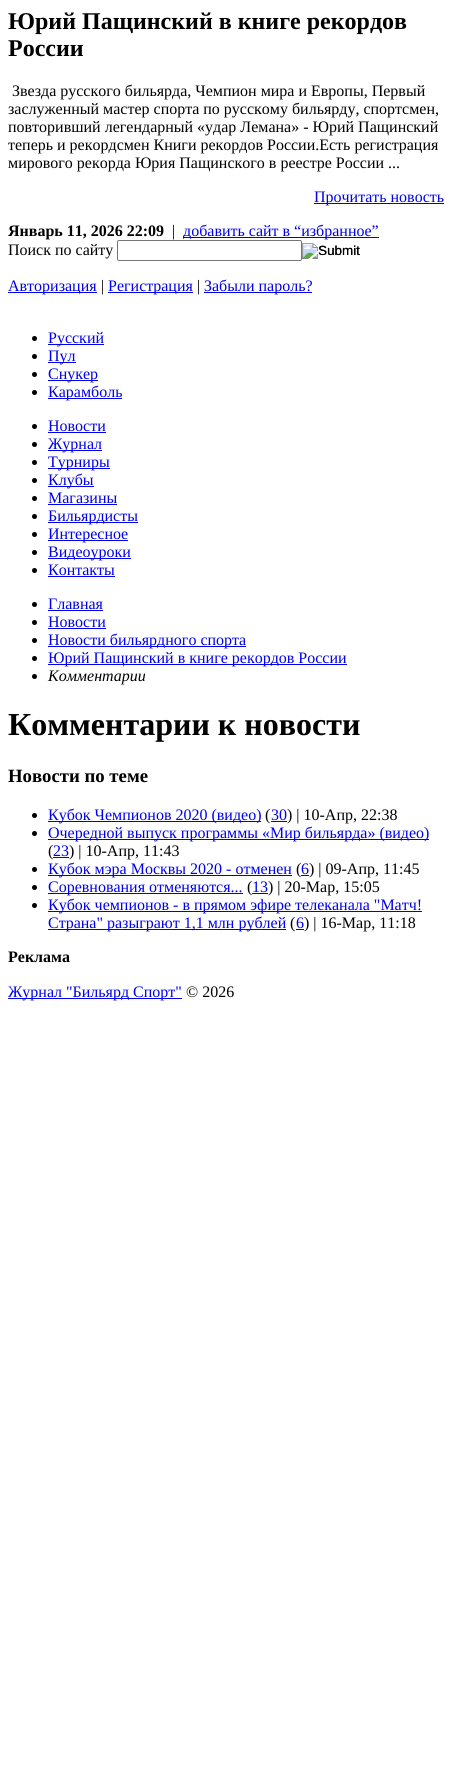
import math
import cairo



def rounded_rect(context, x, y, w, h, r):
    context.new_sub_path()
    for i, (u, v) in enumerate([(x + w - r, y + h - r), (x + r, y + h - r), (x + r, y + r), (x + w - r, y + r)]):
        context.arc(u, v, r, i * math.pi / 2, (i + 1) * math.pi / 2)
    context.close_path()


def draw_image(context, path, x, y, w, h):
    context.save()
    context.set_source_surface(cairo.ImageSurface.create_from_png(path), x, y)
    context.rectangle(x, y, w, h)
    context.fill()
    context.restore()


def draw(context):
    context.set_source_rgb(1, 1, 1)
    context.paint()
    context.set_source_rgb(0, 0, 238 / 255)
    context.rectangle(314, 203, 130, 1)
    context.fill()
    context.rectangle(183, 237, 196, 1)
    context.fill()
    rounded_rect(context, 117.5, 240.5, 184, 20, 1.5)
    context.set_source_rgb(118 / 255, 118 / 255, 118 / 255)
    context.set_line_width(1)
    context.stroke()
    draw_image(context, "images/1.png", 302, 243, 58, 16)
    context.set_source_rgb(0, 0, 238 / 255)
    context.rectangle(8, 292, 89, 1)
    context.fill()
    context.rectangle(108, 292, 85, 1)
    context.fill()
    context.rectangle(204, 292, 108, 1)
    context.fill()
    context.set_source_rgb(0, 0, 0)
    context.arc(34.5, 338.5, 2.5, 0, 2 * math.pi)
    context.fill()
    context.set_source_rgb(0, 0, 238 / 255)
    context.rectangle(48, 344, 56, 1)
    context.fill()
    context.set_source_rgb(0, 0, 0)
    context.arc(34.5, 356.5, 2.5, 0, 2 * math.pi)
    context.fill()
    context.set_source_rgb(0, 0, 238 / 255)
    context.rectangle(48, 362, 28, 1)
    context.fill()
    context.set_source_rgb(0, 0, 0)
    context.arc(34.5, 374.5, 2.5, 0, 2 * math.pi)
    context.fill()
    context.set_source_rgb(0, 0, 238 / 255)
    context.rectangle(48, 380, 50, 1)
    context.fill()
    context.set_source_rgb(0, 0, 0)
    context.arc(34.5, 392.5, 2.5, 0, 2 * math.pi)
    context.fill()
    context.set_source_rgb(0, 0, 238 / 255)
    context.rectangle(48, 398, 74, 1)
    context.fill()
    context.set_source_rgb(0, 0, 0)
    context.arc(34.5, 426.5, 2.5, 0, 2 * math.pi)
    context.fill()
    context.set_source_rgb(0, 0, 238 / 255)
    context.rectangle(48, 432, 58, 1)
    context.fill()
    context.set_source_rgb(0, 0, 0)
    context.arc(34.5, 444.5, 2.5, 0, 2 * math.pi)
    context.fill()
    context.set_source_rgb(0, 0, 238 / 255)
    context.rectangle(48, 450, 54, 1)
    context.fill()
    context.set_source_rgb(0, 0, 0)
    context.arc(34.5, 462.5, 2.5, 0, 2 * math.pi)
    context.fill()
    context.set_source_rgb(0, 0, 238 / 255)
    context.rectangle(48, 468, 62, 1)
    context.fill()
    context.set_source_rgb(0, 0, 0)
    context.arc(34.5, 480.5, 2.5, 0, 2 * math.pi)
    context.fill()
    context.set_source_rgb(0, 0, 238 / 255)
    context.rectangle(48, 486, 46, 1)
    context.fill()
    context.set_source_rgb(0, 0, 0)
    context.arc(34.5, 498.5, 2.5, 0, 2 * math.pi)
    context.fill()
    context.set_source_rgb(0, 0, 238 / 255)
    context.rectangle(48, 504, 69, 1)
    context.fill()
    context.set_source_rgb(0, 0, 0)
    context.arc(34.5, 516.5, 2.5, 0, 2 * math.pi)
    context.fill()
    context.set_source_rgb(0, 0, 238 / 255)
    context.rectangle(48, 522, 90, 1)
    context.fill()
    context.set_source_rgb(0, 0, 0)
    context.arc(34.5, 534.5, 2.5, 0, 2 * math.pi)
    context.fill()
    context.set_source_rgb(0, 0, 238 / 255)
    context.rectangle(48, 540, 80, 1)
    context.fill()
    context.set_source_rgb(0, 0, 0)
    context.arc(34.5, 552.5, 2.5, 0, 2 * math.pi)
    context.fill()
    context.set_source_rgb(0, 0, 238 / 255)
    context.rectangle(48, 558, 83, 1)
    context.fill()
    context.set_source_rgb(0, 0, 0)
    context.arc(34.5, 570.5, 2.5, 0, 2 * math.pi)
    context.fill()
    context.set_source_rgb(0, 0, 238 / 255)
    context.rectangle(48, 576, 67, 1)
    context.fill()
    context.set_source_rgb(0, 0, 0)
    context.arc(34.5, 604.5, 2.5, 0, 2 * math.pi)
    context.fill()
    context.set_source_rgb(0, 0, 238 / 255)
    context.rectangle(48, 610, 55, 1)
    context.fill()
    context.set_source_rgb(0, 0, 0)
    context.arc(34.5, 622.5, 2.5, 0, 2 * math.pi)
    context.fill()
    context.set_source_rgb(0, 0, 238 / 255)
    context.rectangle(48, 628, 58, 1)
    context.fill()
    context.set_source_rgb(0, 0, 0)
    context.arc(34.5, 640.5, 2.5, 0, 2 * math.pi)
    context.fill()
    context.set_source_rgb(0, 0, 238 / 255)
    context.rectangle(48, 646, 198, 1)
    context.fill()
    context.set_source_rgb(0, 0, 0)
    context.arc(34.5, 658.5, 2.5, 0, 2 * math.pi)
    context.fill()
    context.set_source_rgb(0, 0, 238 / 255)
    context.rectangle(48, 664, 299, 1)
    context.fill()
    context.set_source_rgb(0, 0, 0)
    context.arc(34.5, 676.5, 2.5, 0, 2 * math.pi)
    context.fill()
    context.arc(34.5, 815.5, 2.5, 0, 2 * math.pi)
    context.fill()
    context.set_source_rgb(0, 0, 238 / 255)
    context.rectangle(48, 821, 213, 1)
    context.fill()
    context.rectangle(271, 821, 16, 1)
    context.fill()
    context.set_source_rgb(0, 0, 0)
    context.arc(34.5, 833.5, 2.5, 0, 2 * math.pi)
    context.fill()
    context.set_source_rgb(0, 0, 238 / 255)
    context.rectangle(48, 839, 381, 1)
    context.fill()
    context.rectangle(53, 857, 16, 1)
    context.fill()
    context.set_source_rgb(0, 0, 0)
    context.arc(34.5, 869.5, 2.5, 0, 2 * math.pi)
    context.fill()
    context.set_source_rgb(0, 0, 238 / 255)
    context.rectangle(48, 875, 244, 1)
    context.fill()
    context.rectangle(301, 875, 8, 1)
    context.fill()
    context.set_source_rgb(0, 0, 0)
    context.arc(34.5, 887.5, 2.5, 0, 2 * math.pi)
    context.fill()
    context.set_source_rgb(0, 0, 238 / 255)
    context.rectangle(48, 893, 195, 1)
    context.fill()
    context.rectangle(252, 893, 16, 1)
    context.fill()
    context.set_source_rgb(0, 0, 0)
    context.arc(34.5, 905.5, 2.5, 0, 2 * math.pi)
    context.fill()
    context.set_source_rgb(0, 0, 238 / 255)
    context.rectangle(48, 911, 374, 1)
    context.fill()
    context.rectangle(48, 929, 238, 1)
    context.fill()
    context.rectangle(296, 929, 8, 1)
    context.fill()
    context.rectangle(8, 998, 174, 1)
    context.fill()
    context.select_font_face("Liberation Serif", cairo.FontSlant.NORMAL, cairo.FontWeight.BOLD)
    context.set_font_size(24)
    context.set_source_rgb(0, 0, 0)
    context.move_to(8, 29)
    context.show_text("Юрий Пащинский в книге рекордов")
    context.move_to(8, 56)
    context.show_text("России")
    context.select_font_face("Liberation Serif")
    context.set_font_size(16)
    context.move_to(12, 96)
    context.show_text("Звезда русского бильярда, Чемпион мира и Европы, Первый")
    context.move_to(8, 114)
    context.show_text("заслуженный мастер спорта по русскому бильярду, спортсмен,")
    context.move_to(8, 132)
    context.show_text("повторивший легендарный «удар Лемана» - Юрий Пащинский")
    context.move_to(8, 150)
    context.show_text("теперь и рекордсмен Книги рекордов России.Есть регистрация")
    context.move_to(8, 168)
    context.show_text("мирового рекорда Юрия Пащинского в реестре России ...")
    context.set_source_rgb(0, 0, 238 / 255)
    context.move_to(314, 202)
    context.show_text("Прочитать новость")
    context.select_font_face("Liberation Serif", cairo.FontSlant.NORMAL, cairo.FontWeight.BOLD)
    context.set_source_rgb(0, 0, 0)
    context.move_to(8, 236)
    context.show_text("Январь 11, 2026 22:09")
    context.select_font_face("Liberation Serif")
    context.move_to(172, 236)
    context.show_text("|")
    context.set_source_rgb(0, 0, 238 / 255)
    context.move_to(183, 236)
    context.show_text("добавить сайт в “избранное”")
    context.set_source_rgb(0, 0, 0)
    context.move_to(8, 255)
    context.show_text("Поиск по сайту")
    context.select_font_face("Liberation Sans")
    context.set_font_size(13.5)
    context.move_to(318, 255)
    context.show_text("Submit")
    context.select_font_face("Liberation Serif")
    context.set_font_size(16)
    context.set_source_rgb(0, 0, 238 / 255)
    context.move_to(8, 291)
    context.show_text("Авторизация")
    context.set_source_rgb(0, 0, 0)
    context.move_to(101, 291)
    context.show_text("|")
    context.set_source_rgb(0, 0, 238 / 255)
    context.move_to(108, 291)
    context.show_text("Регистрация")
    context.set_source_rgb(0, 0, 0)
    context.move_to(197, 291)
    context.show_text("|")
    context.set_source_rgb(0, 0, 238 / 255)
    context.move_to(204, 291)
    context.show_text("Забыли пароль?")
    context.move_to(48, 343)
    context.show_text("Русский")
    context.move_to(48, 361)
    context.show_text("Пул")
    context.move_to(48, 379)
    context.show_text("Снукер")
    context.move_to(48, 397)
    context.show_text("Карамболь")
    context.move_to(48, 431)
    context.show_text("Новости")
    context.move_to(48, 449)
    context.show_text("Журнал")
    context.move_to(48, 467)
    context.show_text("Турниры")
    context.move_to(48, 485)
    context.show_text("Клубы")
    context.move_to(48, 503)
    context.show_text("Магазины")
    context.move_to(48, 521)
    context.show_text("Бильярдисты")
    context.move_to(48, 539)
    context.show_text("Интересное")
    context.move_to(48, 557)
    context.show_text("Видеоуроки")
    context.move_to(48, 575)
    context.show_text("Контакты")
    context.move_to(48, 609)
    context.show_text("Главная")
    context.move_to(48, 627)
    context.show_text("Новости")
    context.move_to(48, 645)
    context.show_text("Новости бильярдного спорта")
    context.move_to(48, 663)
    context.show_text("Юрий Пащинский в книге рекордов России")
    context.select_font_face("Liberation Serif", cairo.FontSlant.ITALIC)
    context.set_source_rgb(0, 0, 0)
    context.move_to(48, 681)
    context.show_text("Комментарии")
    context.select_font_face("Liberation Serif", cairo.FontSlant.NORMAL, cairo.FontWeight.BOLD)
    context.set_font_size(32)
    context.move_to(8, 735)
    context.show_text("Комментарии к новости")
    context.set_font_size(18.75)
    context.move_to(8, 782)
    context.show_text("Новости по теме")
    context.select_font_face("Liberation Serif")
    context.set_font_size(16)
    context.set_source_rgb(0, 0, 238 / 255)
    context.move_to(48, 820)
    context.show_text("Кубок Чемпионов 2020 (видео)")
    context.set_source_rgb(0, 0, 0)
    context.move_to(265, 820)
    context.show_text("(")
    context.set_source_rgb(0, 0, 238 / 255)
    context.move_to(271, 820)
    context.show_text("30")
    context.set_source_rgb(0, 0, 0)
    context.move_to(287, 820)
    context.show_text(") | 10-Апр, 22:38")
    context.set_source_rgb(0, 0, 238 / 255)
    context.move_to(48, 838)
    context.show_text("Очередной выпуск программы «Мир бильярда» (видео)")
    context.set_source_rgb(0, 0, 0)
    context.move_to(48, 856)
    context.show_text("(")
    context.set_source_rgb(0, 0, 238 / 255)
    context.move_to(53, 856)
    context.show_text("23")
    context.set_source_rgb(0, 0, 0)
    context.move_to(69, 856)
    context.show_text(") | 10-Апр, 11:43")
    context.set_source_rgb(0, 0, 238 / 255)
    context.move_to(48, 874)
    context.show_text("Кубок мэра Москвы 2020 - отменен")
    context.set_source_rgb(0, 0, 0)
    context.move_to(296, 874)
    context.show_text("(")
    context.set_source_rgb(0, 0, 238 / 255)
    context.move_to(301, 874)
    context.show_text("6")
    context.set_source_rgb(0, 0, 0)
    context.move_to(309, 874)
    context.show_text(") | 09-Апр, 11:45")
    context.set_source_rgb(0, 0, 238 / 255)
    context.move_to(48, 892)
    context.show_text("Соревнования отменяются...")
    context.set_source_rgb(0, 0, 0)
    context.move_to(247, 892)
    context.show_text("(")
    context.set_source_rgb(0, 0, 238 / 255)
    context.move_to(252, 892)
    context.show_text("13")
    context.set_source_rgb(0, 0, 0)
    context.move_to(268, 892)
    context.show_text(") | 20-Мар, 15:05")
    context.set_source_rgb(0, 0, 238 / 255)
    context.move_to(48, 910)
    context.show_text("Кубок чемпионов - в прямом эфире телеканала \"Матч!")
    context.move_to(48, 928)
    context.show_text("Страна\" разыграют 1,1 млн рублей")
    context.set_source_rgb(0, 0, 0)
    context.move_to(290, 928)
    context.show_text("(")
    context.set_source_rgb(0, 0, 238 / 255)
    context.move_to(296, 928)
    context.show_text("6")
    context.set_source_rgb(0, 0, 0)
    context.move_to(304, 928)
    context.show_text(") | 16-Мар, 11:18")
    context.select_font_face("Liberation Serif", cairo.FontSlant.NORMAL, cairo.FontWeight.BOLD)
    context.move_to(8, 962)
    context.show_text("Реклама")
    context.select_font_face("Liberation Serif")
    context.set_source_rgb(0, 0, 238 / 255)
    context.move_to(8, 997)
    context.show_text("Журнал \"Бильярд Спорт\"")
    context.set_source_rgb(0, 0, 0)
    context.move_to(186, 997)
    context.show_text("© 2026")


surface = cairo.ImageSurface(cairo.Format.RGB24, 452, 1781)
context = cairo.Context(surface)
options = cairo.FontOptions()
options.set_hint_metrics(cairo.HintMetrics.OFF)
options.set_hint_style(cairo.HintStyle.NONE)
context.set_font_options(options)
context.set_miter_limit(4)
draw(context)
surface.write_to_png("out.png")
